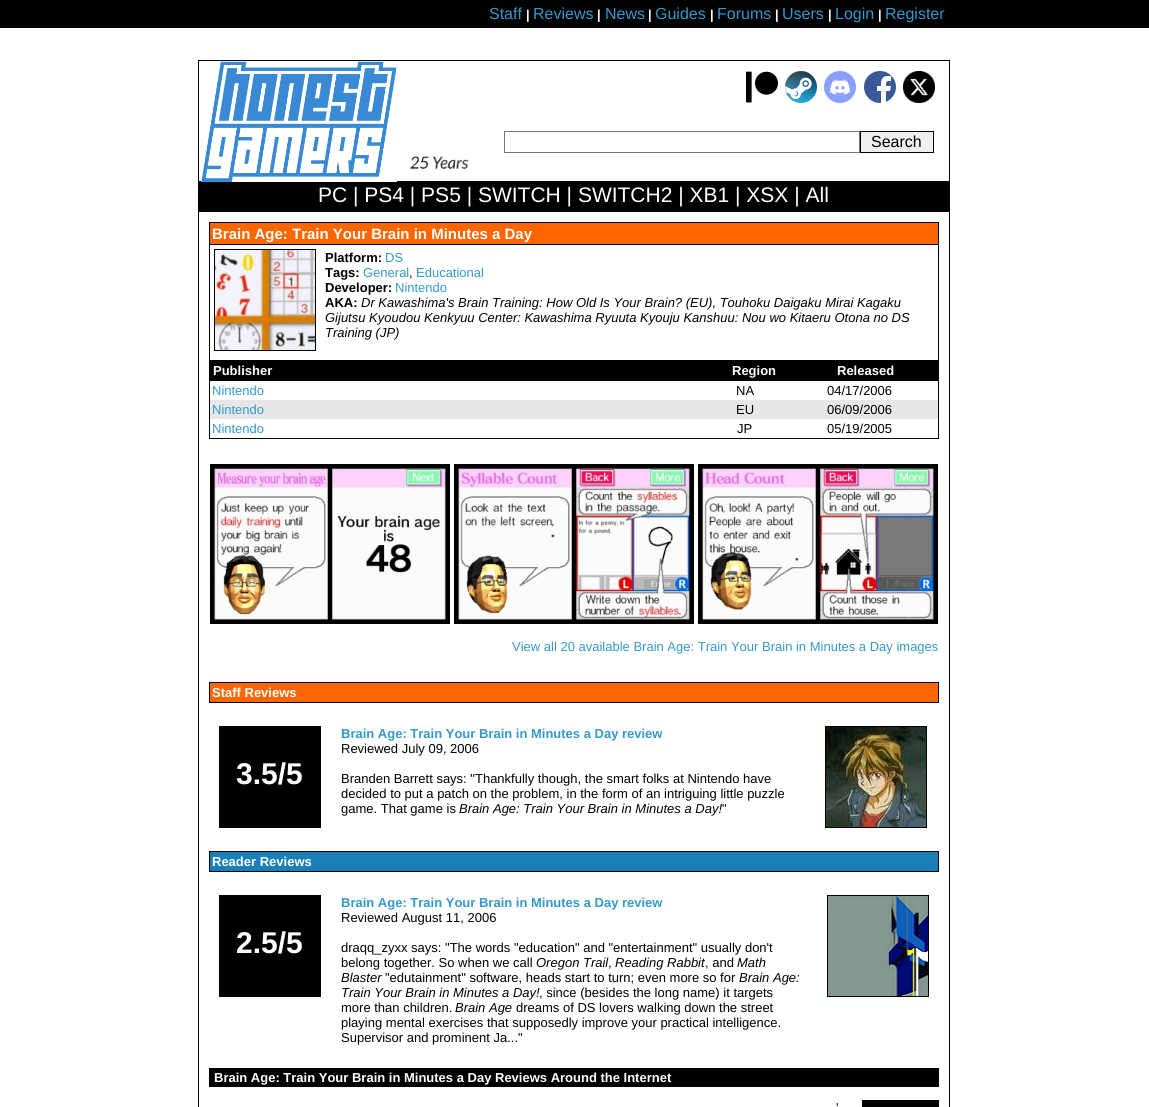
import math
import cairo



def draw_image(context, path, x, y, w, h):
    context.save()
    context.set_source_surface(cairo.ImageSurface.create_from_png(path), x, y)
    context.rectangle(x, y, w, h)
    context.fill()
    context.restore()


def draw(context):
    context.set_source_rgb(1, 1, 1)
    context.paint()
    context.set_source_rgb(0, 0, 0)
    context.rectangle(0, 0, 1149, 28)
    context.fill()
    context.rectangle(198.5, 60.5, 751, 121)
    context.set_line_width(1)
    context.stroke()
    draw_image(context, "images/1.png", 201, 61, 196, 121)
    draw_image(context, "images/2.png", 410, 156, 59, 13)
    draw_image(context, "images/3.png", 746, 71, 32, 32)
    draw_image(context, "images/4.png", 785, 71, 32, 32)
    draw_image(context, "images/5.png", 824, 71, 32, 32)
    draw_image(context, "images/6.png", 864, 71, 32, 32)
    draw_image(context, "images/7.png", 903, 71, 32, 32)
    context.rectangle(504.5, 131.5, 355, 21)
    context.set_source_rgb(118 / 255, 118 / 255, 118 / 255)
    context.stroke()
    context.set_source_rgb(239 / 255, 239 / 255, 239 / 255)
    context.rectangle(860.5, 131.5, 73, 21)
    context.fill_preserve()
    context.set_source_rgb(0, 0, 0)
    context.stroke()
    context.rectangle(198, 182, 752, 30)
    context.fill()
    context.rectangle(949, 211, 1, 896)
    context.fill()
    context.rectangle(198, 211, 1, 896)
    context.fill()
    context.rectangle(209.5, 222.5, 729, 216)
    context.stroke()
    context.set_source_rgb(1, 102 / 255, 0)
    context.rectangle(210, 223, 728, 21)
    context.fill()
    context.set_source_rgb(0, 0, 0)
    context.rectangle(210, 244, 728, 1)
    context.fill()
    context.rectangle(214, 249, 102, 102)
    context.fill()
    draw_image(context, "images/8.png", 215, 250, 100, 100)
    context.rectangle(210, 360, 728, 21)
    context.fill()
    context.set_source_rgb(231 / 255, 231 / 255, 231 / 255)
    context.rectangle(210, 400, 728, 19)
    context.fill()
    draw_image(context, "images/9.png", 210, 464, 240, 160)
    draw_image(context, "images/10.png", 454, 464, 240, 160)
    draw_image(context, "images/11.png", 698, 464, 240, 160)
    context.set_source_rgb(1, 102 / 255, 0)
    context.rectangle(209.5, 682.5, 729, 20)
    context.fill_preserve()
    context.set_source_rgb(0, 0, 0)
    context.stroke()
    context.rectangle(219, 726, 102, 102)
    context.fill()
    context.rectangle(825, 726, 102, 102)
    context.fill()
    draw_image(context, "images/12.png", 826, 727, 100, 100)
    context.set_source_rgb(26 / 255, 127 / 255, 183 / 255)
    context.rectangle(209.5, 851.5, 729, 20)
    context.fill_preserve()
    context.set_source_rgb(0, 0, 0)
    context.stroke()
    context.rectangle(219, 895, 102, 102)
    context.fill()
    context.rectangle(827, 895, 102, 102)
    context.fill()
    draw_image(context, "images/13.png", 828, 896, 100, 100)
    context.rectangle(209, 1068, 730, 19)
    context.fill()
    context.rectangle(862, 1100, 77, 7)
    context.fill()
    context.select_font_face("Liberation Sans")
    context.set_font_size(16)
    context.set_source_rgb(51 / 255, 153 / 255, 204 / 255)
    context.move_to(489, 19)
    context.show_text("Staff")
    context.select_font_face("Liberation Sans", cairo.FontSlant.NORMAL, cairo.FontWeight.BOLD)
    context.set_font_size(13)
    context.set_source_rgb(1, 1, 1)
    context.move_to(526, 19)
    context.show_text("|")
    context.select_font_face("Liberation Sans")
    context.set_font_size(16)
    context.set_source_rgb(51 / 255, 153 / 255, 204 / 255)
    context.move_to(533, 19)
    context.show_text("Reviews")
    context.select_font_face("Liberation Sans", cairo.FontSlant.NORMAL, cairo.FontWeight.BOLD)
    context.set_font_size(13)
    context.set_source_rgb(1, 1, 1)
    context.move_to(597, 19)
    context.show_text("|")
    context.select_font_face("Liberation Sans")
    context.set_font_size(16)
    context.set_source_rgb(51 / 255, 153 / 255, 204 / 255)
    context.move_to(605, 19)
    context.show_text("News")
    context.select_font_face("Liberation Sans", cairo.FontSlant.NORMAL, cairo.FontWeight.BOLD)
    context.set_font_size(13)
    context.set_source_rgb(1, 1, 1)
    context.move_to(648, 19)
    context.show_text("|")
    context.select_font_face("Liberation Sans")
    context.set_font_size(16)
    context.set_source_rgb(51 / 255, 153 / 255, 204 / 255)
    context.move_to(655, 19)
    context.show_text("Guides")
    context.select_font_face("Liberation Sans", cairo.FontSlant.NORMAL, cairo.FontWeight.BOLD)
    context.set_font_size(13)
    context.set_source_rgb(1, 1, 1)
    context.move_to(710, 19)
    context.show_text("|")
    context.select_font_face("Liberation Sans")
    context.set_font_size(16)
    context.set_source_rgb(51 / 255, 153 / 255, 204 / 255)
    context.move_to(717, 19)
    context.show_text("Forums")
    context.select_font_face("Liberation Sans", cairo.FontSlant.NORMAL, cairo.FontWeight.BOLD)
    context.set_font_size(13)
    context.set_source_rgb(1, 1, 1)
    context.move_to(775, 19)
    context.show_text("|")
    context.select_font_face("Liberation Sans")
    context.set_font_size(16)
    context.set_source_rgb(51 / 255, 153 / 255, 204 / 255)
    context.move_to(782, 19)
    context.show_text("Users")
    context.select_font_face("Liberation Sans", cairo.FontSlant.NORMAL, cairo.FontWeight.BOLD)
    context.set_font_size(13)
    context.set_source_rgb(1, 1, 1)
    context.move_to(828, 19)
    context.show_text("|")
    context.select_font_face("Liberation Sans")
    context.set_font_size(16)
    context.set_source_rgb(51 / 255, 153 / 255, 204 / 255)
    context.move_to(835, 19)
    context.show_text("Login")
    context.select_font_face("Liberation Sans", cairo.FontSlant.NORMAL, cairo.FontWeight.BOLD)
    context.set_font_size(13)
    context.set_source_rgb(1, 1, 1)
    context.move_to(878, 19)
    context.show_text("|")
    context.select_font_face("Liberation Sans")
    context.set_font_size(16)
    context.set_source_rgb(51 / 255, 153 / 255, 204 / 255)
    context.move_to(885, 19)
    context.show_text("Register")
    context.set_source_rgb(0, 0, 0)
    context.move_to(871, 147)
    context.show_text("Search")
    context.set_font_size(21)
    context.set_source_rgb(1, 1, 1)
    context.move_to(318, 202)
    context.show_text("PC | PS4 | PS5 | SWITCH | SWITCH2 | XB1 | XSX | All")
    context.select_font_face("Liberation Sans", cairo.FontSlant.NORMAL, cairo.FontWeight.BOLD)
    context.set_font_size(15)
    context.move_to(212, 239)
    context.show_text("Brain Age: Train Your Brain in Minutes a Day")
    context.set_font_size(13)
    context.set_source_rgb(0, 0, 0)
    context.move_to(325, 262)
    context.show_text("Platform:")
    context.select_font_face("Liberation Sans")
    context.set_source_rgb(51 / 255, 153 / 255, 204 / 255)
    context.move_to(385, 262)
    context.show_text("DS")
    context.select_font_face("Liberation Sans", cairo.FontSlant.NORMAL, cairo.FontWeight.BOLD)
    context.set_source_rgb(0, 0, 0)
    context.move_to(325, 277)
    context.show_text("Tags:")
    context.select_font_face("Liberation Sans")
    context.set_source_rgb(51 / 255, 153 / 255, 204 / 255)
    context.move_to(363, 277)
    context.show_text("General")
    context.set_source_rgb(0, 0, 0)
    context.move_to(409, 277)
    context.show_text(",")
    context.set_source_rgb(51 / 255, 153 / 255, 204 / 255)
    context.move_to(416, 277)
    context.show_text("Educational")
    context.select_font_face("Liberation Sans", cairo.FontSlant.NORMAL, cairo.FontWeight.BOLD)
    context.set_source_rgb(0, 0, 0)
    context.move_to(325, 292)
    context.show_text("Developer:")
    context.select_font_face("Liberation Sans")
    context.set_source_rgb(51 / 255, 153 / 255, 204 / 255)
    context.move_to(395, 292)
    context.show_text("Nintendo")
    context.select_font_face("Liberation Sans", cairo.FontSlant.NORMAL, cairo.FontWeight.BOLD)
    context.set_source_rgb(0, 0, 0)
    context.move_to(325, 307)
    context.show_text("AKA:")
    context.select_font_face("Liberation Sans", cairo.FontSlant.ITALIC)
    context.move_to(361, 307)
    context.show_text("Dr Kawashima's Brain Training: How Old Is Your Brain? (EU), Touhoku Daigaku Mirai Kagaku")
    context.move_to(325, 322)
    context.show_text("Gijutsu Kyoudou Kenkyuu Center: Kawashima Ryuuta Kyouju Kanshuu: Nou wo Kitaeru Otona no DS")
    context.move_to(325, 337)
    context.show_text("Training (JP)")
    context.select_font_face("Liberation Sans", cairo.FontSlant.NORMAL, cairo.FontWeight.BOLD)
    context.set_source_rgb(1, 1, 1)
    context.move_to(213, 375)
    context.show_text("Publisher")
    context.move_to(732, 375)
    context.show_text("Region")
    context.move_to(837, 375)
    context.show_text("Released")
    context.select_font_face("Liberation Sans")
    context.set_source_rgb(51 / 255, 153 / 255, 204 / 255)
    context.move_to(212, 395)
    context.show_text("Nintendo")
    context.set_source_rgb(0, 0, 0)
    context.move_to(736, 395)
    context.show_text("NA")
    context.move_to(827, 395)
    context.show_text("04/17/2006")
    context.set_source_rgb(51 / 255, 153 / 255, 204 / 255)
    context.move_to(212, 414)
    context.show_text("Nintendo")
    context.set_source_rgb(0, 0, 0)
    context.move_to(736, 414)
    context.show_text("EU")
    context.move_to(827, 414)
    context.show_text("06/09/2006")
    context.set_source_rgb(51 / 255, 153 / 255, 204 / 255)
    context.move_to(212, 433)
    context.show_text("Nintendo")
    context.set_source_rgb(0, 0, 0)
    context.move_to(737, 433)
    context.show_text("JP")
    context.move_to(827, 433)
    context.show_text("05/19/2005")
    context.set_source_rgb(51 / 255, 153 / 255, 204 / 255)
    context.move_to(512, 651)
    context.show_text("View all 20 available Brain Age: Train Your Brain in Minutes a Day images")
    context.select_font_face("Liberation Sans", cairo.FontSlant.NORMAL, cairo.FontWeight.BOLD)
    context.set_source_rgb(1, 1, 1)
    context.move_to(212, 697)
    context.show_text("Staff Reviews")
    context.set_font_size(30)
    context.move_to(236, 784)
    context.show_text("3.5/5")
    context.set_font_size(13)
    context.set_source_rgb(51 / 255, 153 / 255, 204 / 255)
    context.move_to(341, 738)
    context.show_text("Brain Age: Train Your Brain in Minutes a Day review")
    context.select_font_face("Liberation Sans")
    context.set_source_rgb(0, 0, 0)
    context.move_to(341, 753)
    context.show_text("Reviewed July 09, 2006")
    context.move_to(341, 783)
    context.show_text("Branden Barrett says: \"Thankfully though, the smart folks at Nintendo have")
    context.move_to(341, 798)
    context.show_text("decided to put a patch on the problem, in the form of an intriguing little puzzle")
    context.move_to(341, 813)
    context.show_text("game. That game is")
    context.select_font_face("Liberation Sans", cairo.FontSlant.ITALIC)
    context.move_to(459, 813)
    context.show_text("Brain Age: Train Your Brain in Minutes a Day!")
    context.select_font_face("Liberation Sans")
    context.move_to(722, 813)
    context.show_text("\"")
    context.select_font_face("Liberation Sans", cairo.FontSlant.NORMAL, cairo.FontWeight.BOLD)
    context.set_source_rgb(1, 1, 1)
    context.move_to(212, 866)
    context.show_text("Reader Reviews")
    context.set_font_size(30)
    context.move_to(236, 953)
    context.show_text("2.5/5")
    context.set_font_size(13)
    context.set_source_rgb(51 / 255, 153 / 255, 204 / 255)
    context.move_to(341, 907)
    context.show_text("Brain Age: Train Your Brain in Minutes a Day review")
    context.select_font_face("Liberation Sans")
    context.set_source_rgb(0, 0, 0)
    context.move_to(341, 922)
    context.show_text("Reviewed August 11, 2006")
    context.move_to(341, 952)
    context.show_text("draqq_zyxx says: \"The words \"education\" and \"entertainment\" usually don't")
    context.move_to(341, 967)
    context.show_text("belong together. So when we call")
    context.select_font_face("Liberation Sans", cairo.FontSlant.ITALIC)
    context.move_to(536, 967)
    context.show_text("Oregon Trail")
    context.select_font_face("Liberation Sans")
    context.move_to(608, 967)
    context.show_text(",")
    context.select_font_face("Liberation Sans", cairo.FontSlant.ITALIC)
    context.move_to(615, 967)
    context.show_text("Reading Rabbit")
    context.select_font_face("Liberation Sans")
    context.move_to(705, 967)
    context.show_text(", and")
    context.select_font_face("Liberation Sans", cairo.FontSlant.ITALIC)
    context.move_to(737, 967)
    context.show_text("Math")
    context.move_to(341, 982)
    context.show_text("Blaster")
    context.select_font_face("Liberation Sans")
    context.move_to(385, 982)
    context.show_text("\"edutainment\" software, heads start to turn; even more so for")
    context.select_font_face("Liberation Sans", cairo.FontSlant.ITALIC)
    context.move_to(739, 982)
    context.show_text("Brain Age:")
    context.move_to(341, 997)
    context.show_text("Train Your Brain in Minutes a Day!")
    context.select_font_face("Liberation Sans")
    context.move_to(539, 997)
    context.show_text(", since (besides the long name) it targets")
    context.move_to(341, 1012)
    context.show_text("more than children.")
    context.select_font_face("Liberation Sans", cairo.FontSlant.ITALIC)
    context.move_to(455, 1012)
    context.show_text("Brain Age")
    context.select_font_face("Liberation Sans")
    context.move_to(516, 1012)
    context.show_text("dreams of DS lovers walking down the street")
    context.move_to(341, 1027)
    context.show_text("playing mental exercises that supposedly improve your practical intelligence.")
    context.move_to(341, 1042)
    context.show_text("Supervisor and prominent Ja...\"")
    context.select_font_face("Liberation Sans", cairo.FontSlant.NORMAL, cairo.FontWeight.BOLD)
    context.set_source_rgb(1, 1, 1)
    context.move_to(214, 1082)
    context.show_text("Brain Age: Train Your Brain in Minutes a Day Reviews Around the Internet")
    context.select_font_face("Liberation Sans")
    context.set_source_rgb(0, 0, 0)
    context.move_to(836, 1112)
    context.show_text("'")


surface = cairo.ImageSurface(cairo.Format.RGB24, 1149, 1107)
context = cairo.Context(surface)
options = cairo.FontOptions()
options.set_hint_metrics(cairo.HintMetrics.OFF)
options.set_hint_style(cairo.HintStyle.NONE)
context.set_font_options(options)
context.set_miter_limit(4)
draw(context)
surface.write_to_png("out.png")
